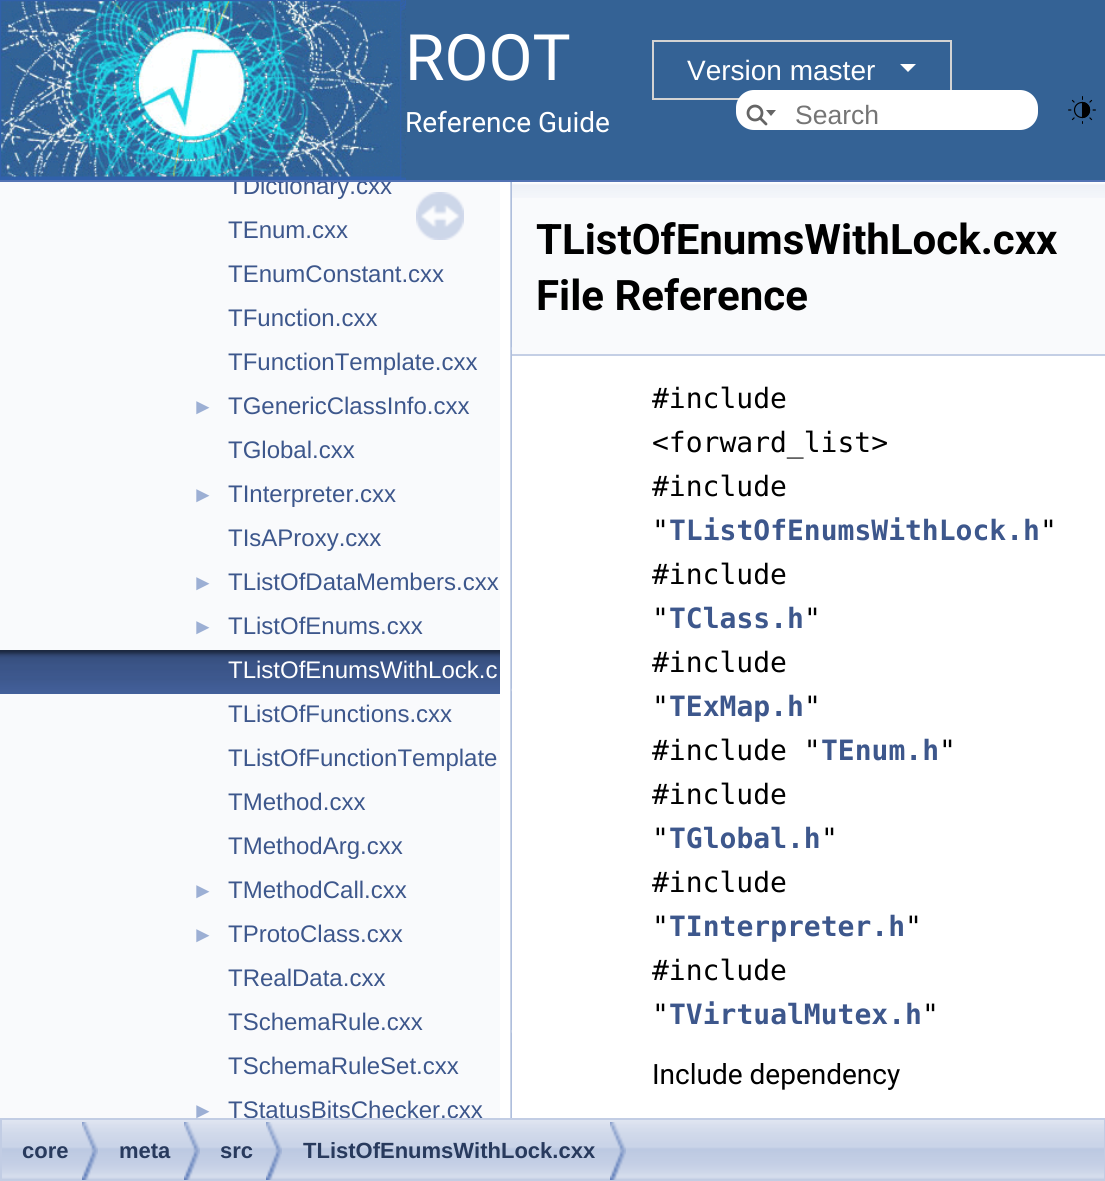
import math
import cairo



def rounded_rect(context, x, y, w, h, r):
    context.new_sub_path()
    for i, (u, v) in enumerate([(x + w - r, y + h - r), (x + r, y + h - r), (x + r, y + r), (x + w - r, y + r)]):
        context.arc(u, v, r, i * math.pi / 2, (i + 1) * math.pi / 2)
    context.close_path()


def draw_image(context, path, x, y, w, h):
    context.save()
    context.set_source_surface(cairo.ImageSurface.create_from_png(path), x, y)
    context.rectangle(x, y, w, h)
    context.fill()
    context.restore()


def draw(context):
    context.set_source_rgb(1, 1, 1)
    context.paint()
    context.set_source_rgb(83 / 255, 115 / 255, 180 / 255)
    context.rectangle(0, 180, 1105, 2)
    context.fill()
    context.set_source_rgb(52 / 255, 98 / 255, 149 / 255)
    context.rectangle(406, 0, 699, 180)
    context.fill()
    draw_image(context, "images/1.png", 0, 0, 406, 180)
    context.rectangle(653, 41, 298, 58)
    context.set_source_rgb(211 / 255, 211 / 255, 211 / 255)
    context.stroke()
    context.set_source_rgb(1, 1, 1)
    context.new_path()
    context.move_to(900, 64)
    context.line_to(916, 64)
    context.line_to(908, 72)
    context.close_path()
    context.fill()
    rounded_rect(context, 736, 90, 302, 40, 18)
    context.fill()
    context.arc(755, 113, 7, 0, 2 * math.pi)
    context.set_source_rgb(101 / 255, 101 / 255, 101 / 255)
    context.set_line_width(2.8)
    context.stroke()
    context.new_path()
    context.move_to(766, 110)
    context.line_to(771, 116)
    context.line_to(776, 110)
    context.close_path()
    context.fill()
    context.new_path()
    context.move_to(760, 118)
    context.line_to(766, 124)
    context.set_line_cap(cairo.LineCap.ROUND)
    context.stroke()
    draw_image(context, "images/2.png", 1068, 96, 28, 28)
    context.set_source_rgb(249 / 255, 250 / 255, 252 / 255)
    context.rectangle(0, 182, 500, 936)
    context.fill()
    draw_image(context, "images/3.png", 0, 650, 500, 44)
    draw_image(context, "images/4.png", 416, 192, 48, 48)
    draw_image(context, "images/5.png", 510, 182, 2, 936)
    context.rectangle(512, 198, 593, 156)
    context.fill()
    draw_image(context, "images/6.png", 512, 182, 593, 16)
    context.set_source_rgb(196 / 255, 207 / 255, 229 / 255)
    context.rectangle(512, 354, 593, 2)
    context.fill()
    draw_image(context, "images/7.png", 2, 1120, 1102, 60)
    context.rectangle(1, 1119, 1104, 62)
    context.set_source_rgb(194 / 255, 205 / 255, 228 / 255)
    context.set_line_width(2)
    context.set_line_cap(cairo.LineCap.BUTT)
    context.stroke()
    draw_image(context, "images/8.png", 82, 1122, 16, 58)
    draw_image(context, "images/8.png", 184, 1122, 16, 58)
    draw_image(context, "images/8.png", 266, 1122, 16, 58)
    draw_image(context, "images/8.png", 610, 1122, 16, 58)
    context.select_font_face("Roboto")
    context.set_font_size(64)
    context.set_source_rgb(1, 1, 1)
    context.move_to(405, 80)
    context.show_text("ROOT")
    context.select_font_face("Liberation Sans")
    context.set_font_size(28)
    context.move_to(687, 80)
    context.show_text("Version master")
    context.select_font_face("Roboto")
    context.move_to(405, 132)
    context.show_text("Reference Guide")
    context.select_font_face("Liberation Sans")
    context.set_font_size(26.5)
    context.set_source_rgb(117 / 255, 117 / 255, 117 / 255)
    context.move_to(795, 124)
    context.show_text("Search")
    context.save()
    context.rectangle(0, 182, 500, 936)
    context.clip()
    context.set_font_size(24)
    context.set_source_rgb(61 / 255, 87 / 255, 140 / 255)
    context.move_to(228, 194)
    context.show_text("TDictionary.cxx")
    context.restore()
    context.set_font_size(24)
    context.set_source_rgb(61 / 255, 87 / 255, 140 / 255)
    context.move_to(228, 238)
    context.show_text("TEnum.cxx")
    context.move_to(228, 282)
    context.show_text("TEnumConstant.cxx")
    context.move_to(228, 326)
    context.show_text("TFunction.cxx")
    context.move_to(228, 370)
    context.show_text("TFunctionTemplate.cxx")
    context.set_font_size(22)
    context.set_source_rgb(156 / 255, 175 / 255, 212 / 255)
    context.move_to(192, 414)
    context.show_text("►")
    context.set_font_size(24)
    context.set_source_rgb(61 / 255, 87 / 255, 140 / 255)
    context.move_to(228, 414)
    context.show_text("TGenericClassInfo.cxx")
    context.move_to(228, 458)
    context.show_text("TGlobal.cxx")
    context.set_font_size(22)
    context.set_source_rgb(156 / 255, 175 / 255, 212 / 255)
    context.move_to(192, 502)
    context.show_text("►")
    context.set_font_size(24)
    context.set_source_rgb(61 / 255, 87 / 255, 140 / 255)
    context.move_to(228, 502)
    context.show_text("TInterpreter.cxx")
    context.move_to(228, 546)
    context.show_text("TIsAProxy.cxx")
    context.set_font_size(22)
    context.set_source_rgb(156 / 255, 175 / 255, 212 / 255)
    context.move_to(192, 590)
    context.show_text("►")
    context.set_font_size(24)
    context.set_source_rgb(61 / 255, 87 / 255, 140 / 255)
    context.move_to(228, 590)
    context.show_text("TListOfDataMembers.cxx")
    context.set_font_size(22)
    context.set_source_rgb(156 / 255, 175 / 255, 212 / 255)
    context.move_to(192, 634)
    context.show_text("►")
    context.set_font_size(24)
    context.set_source_rgb(61 / 255, 87 / 255, 140 / 255)
    context.move_to(228, 634)
    context.show_text("TListOfEnums.cxx")
    context.set_source_rgb(1, 1, 1)
    context.move_to(228, 678)
    context.show_text("TListOfEnumsWithLock.c")
    context.set_source_rgb(61 / 255, 87 / 255, 140 / 255)
    context.move_to(228, 722)
    context.show_text("TListOfFunctions.cxx")
    context.move_to(228, 766)
    context.show_text("TListOfFunctionTemplate")
    context.move_to(228, 810)
    context.show_text("TMethod.cxx")
    context.move_to(228, 854)
    context.show_text("TMethodArg.cxx")
    context.set_font_size(22)
    context.set_source_rgb(156 / 255, 175 / 255, 212 / 255)
    context.move_to(192, 898)
    context.show_text("►")
    context.set_font_size(24)
    context.set_source_rgb(61 / 255, 87 / 255, 140 / 255)
    context.move_to(228, 898)
    context.show_text("TMethodCall.cxx")
    context.set_font_size(22)
    context.set_source_rgb(156 / 255, 175 / 255, 212 / 255)
    context.move_to(192, 942)
    context.show_text("►")
    context.set_font_size(24)
    context.set_source_rgb(61 / 255, 87 / 255, 140 / 255)
    context.move_to(228, 942)
    context.show_text("TProtoClass.cxx")
    context.move_to(228, 986)
    context.show_text("TRealData.cxx")
    context.move_to(228, 1030)
    context.show_text("TSchemaRule.cxx")
    context.move_to(228, 1074)
    context.show_text("TSchemaRuleSet.cxx")
    context.set_font_size(22)
    context.set_source_rgb(156 / 255, 175 / 255, 212 / 255)
    context.move_to(192, 1118)
    context.show_text("►")
    context.save()
    context.rectangle(0, 182, 500, 936)
    context.clip()
    context.set_font_size(24)
    context.set_source_rgb(61 / 255, 87 / 255, 140 / 255)
    context.move_to(228, 1118)
    context.show_text("TStatusBitsChecker.cxx")
    context.restore()
    context.select_font_face("Roboto", cairo.FontSlant.NORMAL, cairo.FontWeight.BOLD)
    context.set_font_size(42)
    context.set_source_rgb(0, 0, 0)
    context.move_to(536, 254)
    context.show_text("TListOfEnumsWithLock.cxx")
    context.move_to(536, 310)
    context.show_text("File Reference")
    context.select_font_face("DejaVu Sans Mono")
    context.set_font_size(28)
    context.move_to(652, 408)
    context.show_text("#include")
    context.move_to(652, 452)
    context.show_text("<forward_list>")
    context.move_to(652, 496)
    context.show_text("#include")
    context.move_to(652, 540)
    context.show_text("\"")
    context.select_font_face("DejaVu Sans Mono", cairo.FontSlant.NORMAL, cairo.FontWeight.BOLD)
    context.set_source_rgb(61 / 255, 87 / 255, 140 / 255)
    context.move_to(669, 540)
    context.show_text("TListOfEnumsWithLock.h")
    context.select_font_face("DejaVu Sans Mono")
    context.set_source_rgb(0, 0, 0)
    context.move_to(1040, 540)
    context.show_text("\"")
    context.move_to(652, 584)
    context.show_text("#include")
    context.move_to(652, 628)
    context.show_text("\"")
    context.select_font_face("DejaVu Sans Mono", cairo.FontSlant.NORMAL, cairo.FontWeight.BOLD)
    context.set_source_rgb(61 / 255, 87 / 255, 140 / 255)
    context.move_to(669, 628)
    context.show_text("TClass.h")
    context.select_font_face("DejaVu Sans Mono")
    context.set_source_rgb(0, 0, 0)
    context.move_to(804, 628)
    context.show_text("\"")
    context.move_to(652, 672)
    context.show_text("#include")
    context.move_to(652, 716)
    context.show_text("\"")
    context.select_font_face("DejaVu Sans Mono", cairo.FontSlant.NORMAL, cairo.FontWeight.BOLD)
    context.set_source_rgb(61 / 255, 87 / 255, 140 / 255)
    context.move_to(669, 716)
    context.show_text("TExMap.h")
    context.select_font_face("DejaVu Sans Mono")
    context.set_source_rgb(0, 0, 0)
    context.move_to(804, 716)
    context.show_text("\"")
    context.move_to(652, 760)
    context.show_text("#include \"")
    context.select_font_face("DejaVu Sans Mono", cairo.FontSlant.NORMAL, cairo.FontWeight.BOLD)
    context.set_source_rgb(61 / 255, 87 / 255, 140 / 255)
    context.move_to(821, 760)
    context.show_text("TEnum.h")
    context.select_font_face("DejaVu Sans Mono")
    context.set_source_rgb(0, 0, 0)
    context.move_to(939, 760)
    context.show_text("\"")
    context.move_to(652, 804)
    context.show_text("#include")
    context.move_to(652, 848)
    context.show_text("\"")
    context.select_font_face("DejaVu Sans Mono", cairo.FontSlant.NORMAL, cairo.FontWeight.BOLD)
    context.set_source_rgb(61 / 255, 87 / 255, 140 / 255)
    context.move_to(669, 848)
    context.show_text("TGlobal.h")
    context.select_font_face("DejaVu Sans Mono")
    context.set_source_rgb(0, 0, 0)
    context.move_to(821, 848)
    context.show_text("\"")
    context.move_to(652, 892)
    context.show_text("#include")
    context.move_to(652, 936)
    context.show_text("\"")
    context.select_font_face("DejaVu Sans Mono", cairo.FontSlant.NORMAL, cairo.FontWeight.BOLD)
    context.set_source_rgb(61 / 255, 87 / 255, 140 / 255)
    context.move_to(669, 936)
    context.show_text("TInterpreter.h")
    context.select_font_face("DejaVu Sans Mono")
    context.set_source_rgb(0, 0, 0)
    context.move_to(905, 936)
    context.show_text("\"")
    context.move_to(652, 980)
    context.show_text("#include")
    context.move_to(652, 1024)
    context.show_text("\"")
    context.select_font_face("DejaVu Sans Mono", cairo.FontSlant.NORMAL, cairo.FontWeight.BOLD)
    context.set_source_rgb(61 / 255, 87 / 255, 140 / 255)
    context.move_to(669, 1024)
    context.show_text("TVirtualMutex.h")
    context.select_font_face("DejaVu Sans Mono")
    context.set_source_rgb(0, 0, 0)
    context.move_to(922, 1024)
    context.show_text("\"")
    context.select_font_face("Roboto")
    context.move_to(652, 1084)
    context.show_text("Include dependency")
    context.select_font_face("Liberation Sans", cairo.FontSlant.NORMAL, cairo.FontWeight.BOLD)
    context.set_font_size(22)
    context.set_source_rgb(40 / 255, 58 / 255, 93 / 255)
    context.move_to(22, 1158)
    context.show_text("core")
    context.move_to(119, 1158)
    context.show_text("meta")
    context.move_to(220, 1158)
    context.show_text("src")
    context.move_to(303, 1158)
    context.show_text("TListOfEnumsWithLock.cxx")


surface = cairo.ImageSurface(cairo.Format.RGB24, 1105, 1181)
context = cairo.Context(surface)
options = cairo.FontOptions()
options.set_hint_metrics(cairo.HintMetrics.OFF)
options.set_hint_style(cairo.HintStyle.NONE)
context.set_font_options(options)
context.set_miter_limit(4)
draw(context)
surface.write_to_png("out.png")
